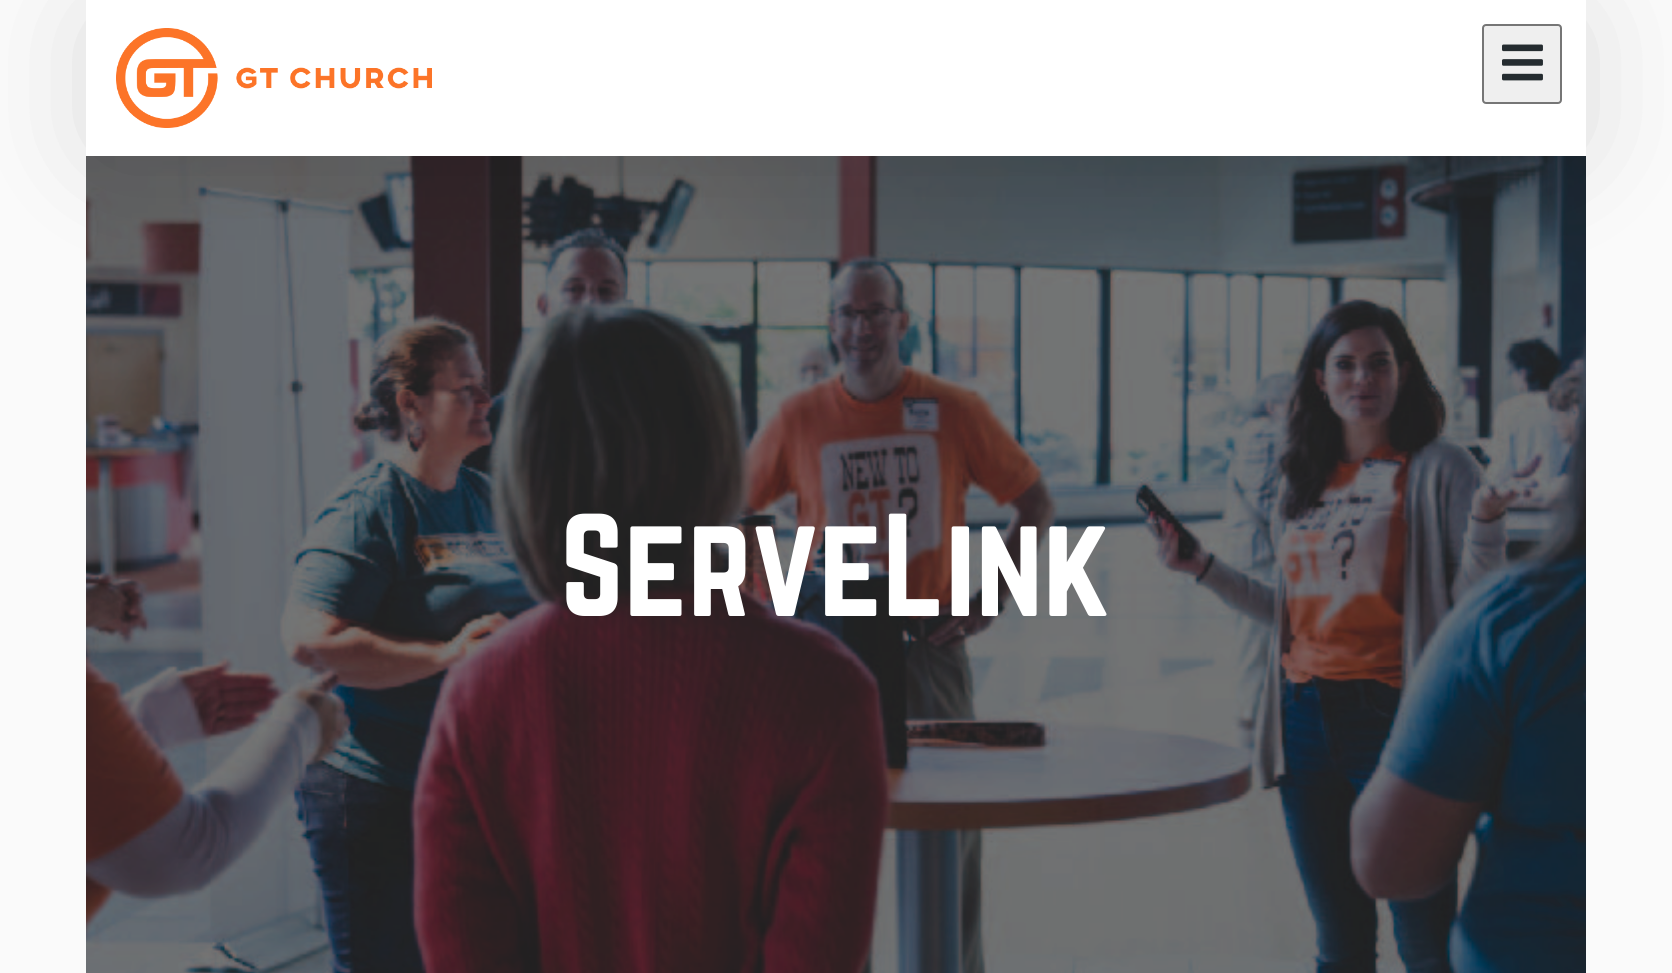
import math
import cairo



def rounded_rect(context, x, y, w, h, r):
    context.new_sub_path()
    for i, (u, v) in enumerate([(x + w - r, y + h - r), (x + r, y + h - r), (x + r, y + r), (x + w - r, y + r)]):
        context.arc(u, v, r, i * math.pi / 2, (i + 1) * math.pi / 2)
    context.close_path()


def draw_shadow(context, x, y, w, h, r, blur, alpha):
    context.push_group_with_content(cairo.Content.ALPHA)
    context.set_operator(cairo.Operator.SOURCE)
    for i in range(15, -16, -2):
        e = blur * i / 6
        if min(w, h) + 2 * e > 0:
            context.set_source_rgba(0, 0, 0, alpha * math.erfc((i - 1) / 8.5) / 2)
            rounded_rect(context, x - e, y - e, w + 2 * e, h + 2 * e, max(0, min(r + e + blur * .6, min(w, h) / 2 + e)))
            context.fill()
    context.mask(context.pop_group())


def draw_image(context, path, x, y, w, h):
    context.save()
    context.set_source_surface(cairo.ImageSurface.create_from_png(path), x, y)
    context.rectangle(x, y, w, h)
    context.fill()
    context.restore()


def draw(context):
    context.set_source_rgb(250 / 255, 250 / 255, 250 / 255)
    context.paint()
    draw_image(context, "images/3.png", 86, 156, 1500, 817)
    context.set_source_rgb(0, 0, 0)
    draw_shadow(context, 104, 24, 1464, 120, 0, 64, 0.15)
    context.set_source_rgb(1, 1, 1)
    context.rectangle(86, 0, 1500, 156)
    context.fill()
    draw_image(context, "images/1.png", 116, 28, 316, 100)
    context.set_source_rgb(239 / 255, 239 / 255, 239 / 255)
    rounded_rect(context, 1483, 25, 78, 78, 3)
    context.fill_preserve()
    context.set_source_rgb(118 / 255, 118 / 255, 118 / 255)
    context.stroke()
    draw_image(context, "images/2.png", 1502, 44, 41, 37)
    context.select_font_face("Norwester")
    context.set_font_size(128)
    context.set_source_rgb(1, 1, 1)
    context.move_to(560, 616)
    context.show_text("ServeLink")


surface = cairo.ImageSurface(cairo.Format.RGB24, 1672, 973)
context = cairo.Context(surface)
options = cairo.FontOptions()
options.set_hint_metrics(cairo.HintMetrics.OFF)
options.set_hint_style(cairo.HintStyle.NONE)
context.set_font_options(options)
context.set_miter_limit(4)
draw(context)
surface.write_to_png("out.png")
